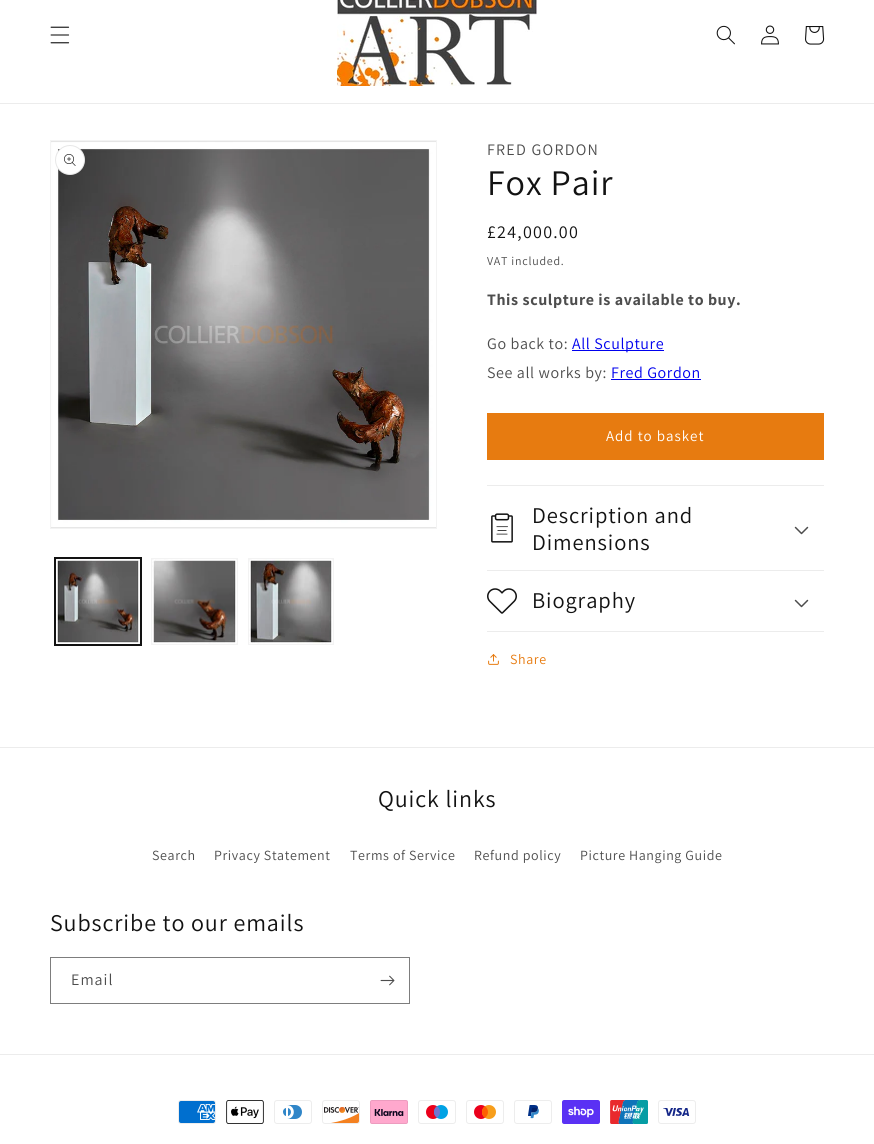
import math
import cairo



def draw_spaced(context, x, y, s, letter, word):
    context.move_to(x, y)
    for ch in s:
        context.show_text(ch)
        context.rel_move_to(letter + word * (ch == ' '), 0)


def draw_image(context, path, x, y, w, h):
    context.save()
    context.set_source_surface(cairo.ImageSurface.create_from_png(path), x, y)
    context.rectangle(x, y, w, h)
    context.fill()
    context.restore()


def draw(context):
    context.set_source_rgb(1, 1, 1)
    context.paint()
    context.set_source_rgb(236 / 255, 236 / 255, 236 / 255)
    context.rectangle(0, 103, 874, 1)
    context.fill()
    draw_image(context, "images/1.png", 50, 26, 20, 18)
    draw_image(context, "images/2.png", 337, 0, 200, 86)
    draw_image(context, "images/3.png", 716, 25, 19, 20)
    draw_image(context, "images/4.png", 761, 25, 18, 20)
    draw_image(context, "images/5.png", 805, 26, 20, 19)
    context.rectangle(50.5, 140.5, 386, 388)
    context.set_source_rgb(243 / 255, 243 / 255, 243 / 255)
    context.set_line_width(1)
    context.stroke()
    draw_image(context, "images/6.png", 51, 141, 385, 387)
    context.set_source_rgb(1, 1, 1)
    context.arc(70, 160, 15, 0, 2 * math.pi)
    context.fill()
    context.arc(70, 160, 14.5, 0, 2 * math.pi)
    context.set_source_rgba(18 / 255, 18 / 255, 18 / 255, 0.1)
    context.stroke()
    draw_image(context, "images/7.png", 64, 154, 12, 12)
    context.rectangle(54.5, 557.5, 87, 88)
    context.set_source_rgb(18 / 255, 18 / 255, 18 / 255)
    context.stroke()
    context.rectangle(55.5, 558.5, 85, 86)
    context.stroke()
    draw_image(context, "images/8.png", 56, 559, 84, 85)
    context.rectangle(151.5, 558.5, 86, 86)
    context.set_source_rgb(243 / 255, 243 / 255, 243 / 255)
    context.stroke()
    draw_image(context, "images/9.png", 152, 559, 85, 85)
    context.rectangle(248.5, 558.5, 85, 86)
    context.stroke()
    draw_image(context, "images/10.png", 249, 559, 84, 85)
    context.set_source_rgb(0, 0, 238 / 255)
    context.rectangle(572, 350, 92, 1)
    context.fill()
    context.rectangle(611, 379, 90, 1)
    context.fill()
    context.set_source_rgb(231 / 255, 123 / 255, 16 / 255)
    context.rectangle(487, 413, 337, 47)
    context.fill()
    context.set_source_rgb(236 / 255, 236 / 255, 236 / 255)
    context.rectangle(487, 485, 337, 1)
    context.fill()
    context.rectangle(487, 570, 337, 1)
    context.fill()
    draw_image(context, "images/11.png", 491, 513, 22, 30)
    draw_image(context, "images/12.png", 794, 526, 15, 9)
    context.rectangle(487, 631, 337, 1)
    context.fill()
    draw_image(context, "images/13.png", 487, 588, 30, 26)
    draw_image(context, "images/12.png", 794, 599, 15, 9)
    draw_image(context, "images/14.png", 488, 654, 11, 11)
    context.rectangle(0, 747, 874, 1)
    context.fill()
    context.rectangle(50.5, 957.5, 359, 46)
    context.set_source_rgb(125 / 255, 125 / 255, 125 / 255)
    context.stroke()
    draw_image(context, "images/15.png", 380, 975, 15, 11)
    context.set_source_rgb(236 / 255, 236 / 255, 236 / 255)
    context.rectangle(0, 1054, 874, 1)
    context.fill()
    draw_image(context, "images/16.png", 178, 1100, 38, 24)
    draw_image(context, "images/17.png", 226, 1100, 38, 24)
    draw_image(context, "images/18.png", 274, 1100, 38, 24)
    draw_image(context, "images/19.png", 322, 1100, 38, 24)
    draw_image(context, "images/20.png", 370, 1100, 38, 24)
    draw_image(context, "images/21.png", 418, 1100, 38, 24)
    draw_image(context, "images/22.png", 466, 1100, 38, 24)
    draw_image(context, "images/23.png", 514, 1100, 38, 24)
    draw_image(context, "images/24.png", 562, 1100, 38, 24)
    draw_image(context, "images/25.png", 610, 1100, 38, 24)
    draw_image(context, "images/26.png", 658, 1100, 38, 24)
    context.select_font_face("Assistant")
    context.set_font_size(16)
    context.set_source_rgb(77 / 255, 77 / 255, 77 / 255)
    draw_spaced(context, 487, 155, "FRED GORDON", 1.25, 0)
    context.set_font_size(36)
    context.set_source_rgb(18 / 255, 18 / 255, 18 / 255)
    draw_spaced(context, 487, 195, "Fox Pair", 0.9, 0)
    context.set_font_size(18)
    draw_spaced(context, 487, 238, "£24,000.00", 1.25, 0)
    context.set_font_size(12)
    context.set_source_rgb(77 / 255, 77 / 255, 77 / 255)
    draw_spaced(context, 487, 265, "VAT included.", 0.75, 0)
    context.select_font_face("Assistant", cairo.FontSlant.NORMAL, cairo.FontWeight.BOLD)
    context.set_font_size(16)
    draw_spaced(context, 487, 305, "This sculpture is available to buy.", 0.6, 0)
    context.select_font_face("Assistant")
    draw_spaced(context, 487, 349, "Go back to:", 0.6, 0)
    context.set_source_rgb(0, 0, 238 / 255)
    draw_spaced(context, 572, 349, "All Sculpture", 0.6, 0)
    context.set_source_rgb(77 / 255, 77 / 255, 77 / 255)
    draw_spaced(context, 487, 378, "See all works by:", 0.6, 0)
    context.set_source_rgb(0, 0, 238 / 255)
    draw_spaced(context, 611, 378, "Fred Gordon", 0.6, 0)
    context.set_font_size(15)
    context.set_source_rgb(1, 1, 1)
    draw_spaced(context, 606, 441, "Add to basket", 1, 0)
    context.set_font_size(22.5)
    context.set_source_rgb(18 / 255, 18 / 255, 18 / 255)
    draw_spaced(context, 532, 523, "Description and", 0.9, 0)
    draw_spaced(context, 532, 550, "Dimensions", 0.9, 0)
    draw_spaced(context, 532, 608, "Biography", 0.9, 0)
    context.set_font_size(14)
    context.set_source_rgb(231 / 255, 123 / 255, 16 / 255)
    draw_spaced(context, 510, 664, "Share", 0.6, 0)
    context.set_font_size(24)
    context.set_source_rgb(18 / 255, 18 / 255, 18 / 255)
    draw_spaced(context, 378, 807, "Quick links", 0.9, 0)
    context.set_font_size(14)
    context.set_source_rgb(77 / 255, 77 / 255, 77 / 255)
    draw_spaced(context, 152, 860, "Search", 0.6, 0)
    draw_spaced(context, 214, 860, "Privacy Statement", 0.6, 0)
    draw_spaced(context, 350, 860, "Terms of Service", 0.6, 0)
    draw_spaced(context, 474, 860, "Refund policy", 0.6, 0)
    draw_spaced(context, 580, 860, "Picture Hanging Guide", 0.6, 0)
    context.set_font_size(24)
    context.set_source_rgb(18 / 255, 18 / 255, 18 / 255)
    draw_spaced(context, 50, 931, "Subscribe to our emails", 0.9, 0)
    context.set_font_size(16)
    context.set_source_rgb(77 / 255, 77 / 255, 77 / 255)
    draw_spaced(context, 71, 985, "Email", 1, 0)


surface = cairo.ImageSurface(cairo.Format.RGB24, 874, 1144)
context = cairo.Context(surface)
options = cairo.FontOptions()
options.set_hint_metrics(cairo.HintMetrics.OFF)
options.set_hint_style(cairo.HintStyle.NONE)
context.set_font_options(options)
context.set_miter_limit(4)
draw(context)
surface.write_to_png("out.png")
